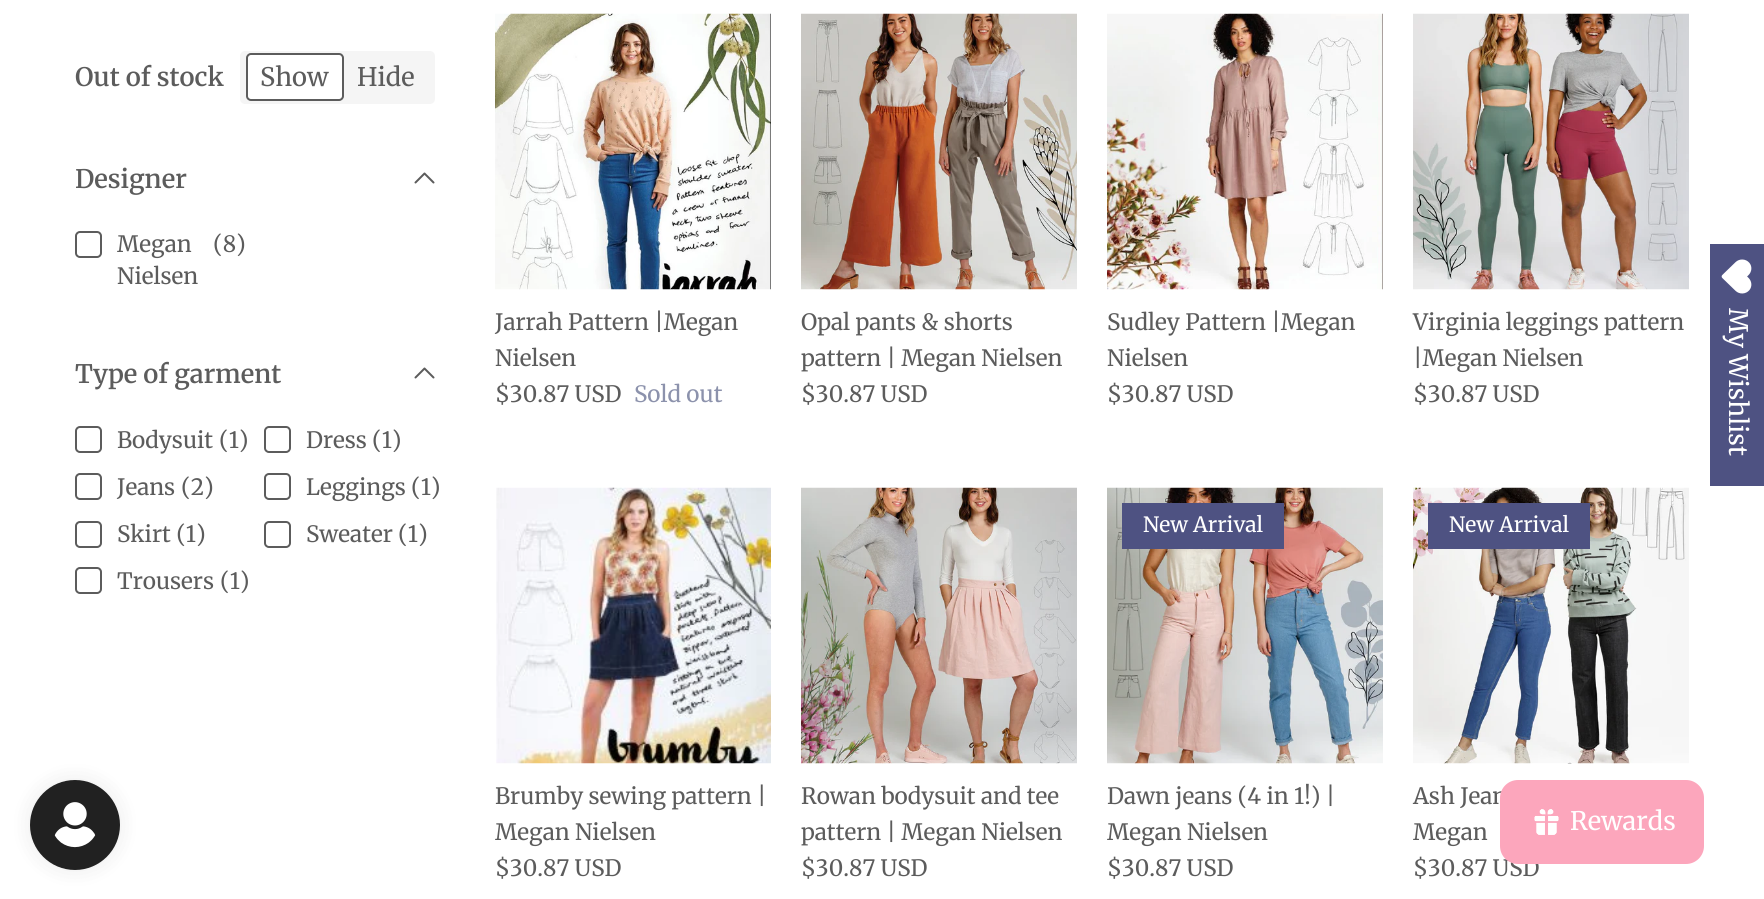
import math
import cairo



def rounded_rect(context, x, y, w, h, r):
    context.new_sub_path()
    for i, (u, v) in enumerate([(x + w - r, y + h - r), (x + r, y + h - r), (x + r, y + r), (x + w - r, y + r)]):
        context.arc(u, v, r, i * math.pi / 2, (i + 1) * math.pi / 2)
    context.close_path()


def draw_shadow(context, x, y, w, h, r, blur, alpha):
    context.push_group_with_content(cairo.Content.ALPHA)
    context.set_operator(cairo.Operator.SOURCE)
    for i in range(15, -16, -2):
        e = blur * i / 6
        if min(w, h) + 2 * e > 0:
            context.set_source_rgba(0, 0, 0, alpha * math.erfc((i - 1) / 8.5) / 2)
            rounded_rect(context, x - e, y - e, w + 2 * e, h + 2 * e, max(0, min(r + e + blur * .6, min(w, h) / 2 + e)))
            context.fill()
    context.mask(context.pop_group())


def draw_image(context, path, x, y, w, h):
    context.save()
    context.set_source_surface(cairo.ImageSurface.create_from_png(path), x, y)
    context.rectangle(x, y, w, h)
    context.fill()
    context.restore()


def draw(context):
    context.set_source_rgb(1, 1, 1)
    context.paint()
    context.set_source_rgb(245 / 255, 245 / 255, 245 / 255)
    rounded_rect(context, 240, 51, 195, 53, 5)
    context.fill()
    context.set_source_rgb(1, 1, 1)
    rounded_rect(context, 247, 54, 96, 46, 4)
    context.fill_preserve()
    context.set_source_rgb(92 / 255, 92 / 255, 92 / 255)
    context.stroke()
    context.new_path()
    context.move_to(433.5, 182.5)
    context.line_to(424.5, 173.5)
    context.line_to(415.5, 182.5)
    context.set_line_cap(cairo.LineCap.ROUND)
    context.set_line_join(cairo.LineJoin.ROUND)
    context.stroke()
    rounded_rect(context, 76, 232, 25, 25, 4)
    context.set_line_cap(cairo.LineCap.BUTT)
    context.set_line_join(cairo.LineJoin.MITER)
    context.stroke()
    context.new_path()
    context.move_to(433.5, 377.5)
    context.line_to(424.5, 368.5)
    context.line_to(415.5, 377.5)
    context.set_line_cap(cairo.LineCap.ROUND)
    context.set_line_join(cairo.LineJoin.ROUND)
    context.stroke()
    rounded_rect(context, 76, 427, 25, 25, 4)
    context.set_line_cap(cairo.LineCap.BUTT)
    context.set_line_join(cairo.LineJoin.MITER)
    context.stroke()
    rounded_rect(context, 265, 427, 25, 25, 4)
    context.stroke()
    rounded_rect(context, 76, 474, 25, 25, 4)
    context.stroke()
    rounded_rect(context, 265, 474, 25, 25, 4)
    context.stroke()
    rounded_rect(context, 76, 522, 25, 25, 4)
    context.stroke()
    rounded_rect(context, 265, 522, 25, 25, 4)
    context.stroke()
    rounded_rect(context, 76, 568, 25, 25, 4)
    context.stroke()
    draw_image(context, "images/1.png", 495, 13, 276, 277)
    draw_image(context, "images/2.png", 801, 13, 276, 277)
    draw_image(context, "images/3.png", 1107, 13, 276, 277)
    draw_image(context, "images/4.png", 1413, 13, 276, 277)
    draw_image(context, "images/5.png", 496, 487, 275, 277)
    draw_image(context, "images/6.png", 801, 487, 276, 277)
    draw_image(context, "images/7.png", 1107, 487, 276, 277)
    context.set_source_rgb(78 / 255, 82 / 255, 130 / 255)
    context.rectangle(1122, 503, 162, 46)
    context.fill()
    draw_image(context, "images/8.png", 1413, 487, 276, 277)
    context.rectangle(1428, 503, 162, 46)
    context.fill()
    context.rectangle(1710, 244, 54, 242)
    context.fill()
    draw_image(context, "images/9.png", 1721, 259, 31, 35)
    context.set_source_rgb(0, 0, 0)
    draw_shadow(context, 30, 780, 90, 90, 45, 11, 0.08)
    context.set_source_rgb(33 / 255, 33 / 255, 33 / 255)
    context.arc(75, 825, 45, 0, 2 * math.pi)
    context.fill()
    draw_image(context, "images/10.png", 54, 802, 42, 46)
    context.select_font_face("Merriweather SemiBold")
    context.set_font_size(25.5)
    context.set_source_rgb(92 / 255, 92 / 255, 92 / 255)
    context.move_to(75, 86)
    context.show_text("Out of stock")
    context.select_font_face("Merriweather")
    context.move_to(260, 86)
    context.show_text("Show")
    context.move_to(357, 86)
    context.show_text("Hide")
    context.select_font_face("Merriweather SemiBold")
    context.move_to(75, 188)
    context.show_text("Designer")
    context.select_font_face("Merriweather")
    context.set_font_size(22.5)
    context.move_to(117, 252)
    context.show_text("Megan")
    context.move_to(117, 284)
    context.show_text("Nielsen")
    context.move_to(213, 252)
    context.show_text("(8)")
    context.select_font_face("Merriweather SemiBold")
    context.set_font_size(25.5)
    context.move_to(75, 383)
    context.show_text("Type of garment")
    context.select_font_face("Merriweather")
    context.set_font_size(22.5)
    context.move_to(117, 448)
    context.show_text("Bodysuit")
    context.move_to(219, 448)
    context.show_text("(1)")
    context.move_to(306, 448)
    context.show_text("Dress")
    context.move_to(372, 448)
    context.show_text("(1)")
    context.move_to(117, 495)
    context.show_text("Jeans")
    context.move_to(181, 495)
    context.show_text("(2)")
    context.move_to(306, 495)
    context.show_text("Leggings")
    context.move_to(411, 495)
    context.show_text("(1)")
    context.move_to(117, 542)
    context.show_text("Skirt (1)")
    context.move_to(306, 542)
    context.show_text("Sweater (1)")
    context.move_to(117, 589)
    context.show_text("Trousers")
    context.move_to(220, 589)
    context.show_text("(1)")
    context.move_to(495, 330)
    context.show_text("Jarrah Pattern |Megan")
    context.move_to(495, 366)
    context.show_text("Nielsen")
    context.move_to(495, 402)
    context.show_text("$30.87 USD")
    context.set_source_rgb(140 / 255, 146 / 255, 172 / 255)
    context.move_to(634, 402)
    context.show_text("Sold out")
    context.set_source_rgb(92 / 255, 92 / 255, 92 / 255)
    context.move_to(801, 330)
    context.show_text("Opal pants & shorts")
    context.move_to(801, 366)
    context.show_text("pattern | Megan Nielsen")
    context.move_to(801, 402)
    context.show_text("$30.87 USD")
    context.move_to(1107, 330)
    context.show_text("Sudley Pattern |Megan")
    context.move_to(1107, 366)
    context.show_text("Nielsen")
    context.move_to(1107, 402)
    context.show_text("$30.87 USD")
    context.move_to(1413, 330)
    context.show_text("Virginia leggings pattern")
    context.move_to(1413, 366)
    context.show_text("|Megan Nielsen")
    context.move_to(1413, 402)
    context.show_text("$30.87 USD")
    context.move_to(495, 804)
    context.show_text("Brumby sewing pattern |")
    context.move_to(495, 840)
    context.show_text("Megan Nielsen")
    context.move_to(495, 876)
    context.show_text("$30.87 USD")
    context.move_to(801, 804)
    context.show_text("Rowan bodysuit and tee")
    context.move_to(801, 840)
    context.show_text("pattern | Megan Nielsen")
    context.move_to(801, 876)
    context.show_text("$30.87 USD")
    context.set_font_size(21)
    context.set_source_rgb(1, 1, 1)
    context.move_to(1143, 532)
    context.show_text("New Arrival")
    context.set_font_size(22.5)
    context.set_source_rgb(92 / 255, 92 / 255, 92 / 255)
    context.move_to(1107, 804)
    context.show_text("Dawn jeans (4 in 1!) |")
    context.move_to(1107, 840)
    context.show_text("Megan Nielsen")
    context.move_to(1107, 876)
    context.show_text("$30.87 USD")
    context.set_font_size(21)
    context.set_source_rgb(1, 1, 1)
    context.move_to(1449, 532)
    context.show_text("New Arrival")
    context.set_font_size(22.5)
    context.set_source_rgb(92 / 255, 92 / 255, 92 / 255)
    context.move_to(1413, 804)
    context.show_text("Ash Jean")
    context.move_to(1413, 840)
    context.show_text("Megan")
    context.move_to(1413, 876)
    context.show_text("$30.87 USD")
    context.set_font_size(25.5)
    context.set_source_rgb(1, 1, 1)
    context.save()
    context.translate(1729, 308)
    context.rotate(90 * math.pi / 180)
    context.move_to(0, 0)
    context.show_text("My Wishlist")
    context.restore()
    context.set_source_rgb(252 / 255, 166 / 255, 188 / 255)
    rounded_rect(context, 1500, 780, 204, 84, 18)
    context.fill()
    draw_image(context, "images/11.png", 1534, 809, 25, 26)
    context.set_source_rgb(1, 1, 1)
    context.move_to(1570, 830)
    context.show_text("Rewards")


surface = cairo.ImageSurface(cairo.Format.RGB24, 1764, 899)
context = cairo.Context(surface)
options = cairo.FontOptions()
options.set_hint_metrics(cairo.HintMetrics.OFF)
options.set_hint_style(cairo.HintStyle.NONE)
context.set_font_options(options)
context.set_miter_limit(4)
draw(context)
surface.write_to_png("out.png")
